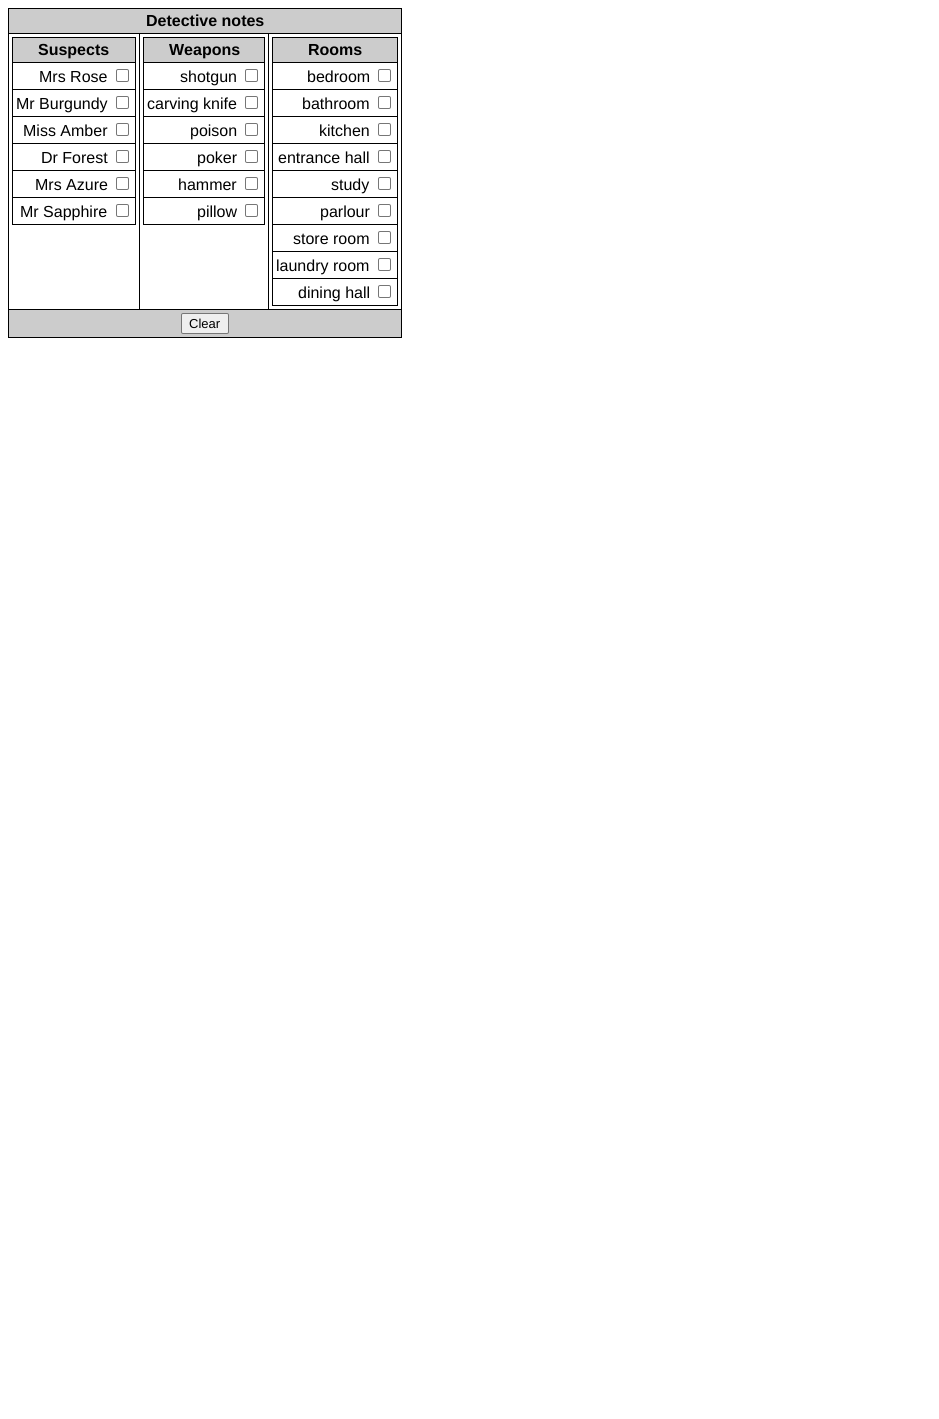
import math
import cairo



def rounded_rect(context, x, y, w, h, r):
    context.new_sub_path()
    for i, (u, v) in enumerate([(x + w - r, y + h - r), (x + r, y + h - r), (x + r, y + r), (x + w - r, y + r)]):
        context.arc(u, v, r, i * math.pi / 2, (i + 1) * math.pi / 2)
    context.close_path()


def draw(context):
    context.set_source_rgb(1, 1, 1)
    context.paint()
    context.set_source_rgb(0, 0, 0)
    context.rectangle(401, 8, 1, 330)
    context.fill()
    context.rectangle(8, 337, 394, 1)
    context.fill()
    context.set_source_rgb(204 / 255, 204 / 255, 204 / 255)
    context.rectangle(9, 9, 392, 24)
    context.fill()
    context.set_source_rgb(0, 0, 0)
    context.rectangle(8, 8, 393, 1)
    context.fill()
    context.rectangle(8, 8, 1, 25)
    context.fill()
    context.rectangle(8, 33, 393, 1)
    context.fill()
    context.rectangle(8, 33, 1, 276)
    context.fill()
    context.rectangle(135, 37, 1, 188)
    context.fill()
    context.rectangle(12, 224, 124, 1)
    context.fill()
    context.set_source_rgb(204 / 255, 204 / 255, 204 / 255)
    context.rectangle(13, 38, 122, 24)
    context.fill()
    context.set_source_rgb(0, 0, 0)
    context.rectangle(12, 37, 123, 1)
    context.fill()
    context.rectangle(12, 37, 1, 25)
    context.fill()
    context.rectangle(12, 62, 123, 1)
    context.fill()
    context.rectangle(12, 62, 1, 27)
    context.fill()
    rounded_rect(context, 116.5, 69.5, 12, 12, 1.5)
    context.set_source_rgb(118 / 255, 118 / 255, 118 / 255)
    context.set_line_width(1)
    context.stroke()
    context.set_source_rgb(0, 0, 0)
    context.rectangle(12, 89, 123, 1)
    context.fill()
    context.rectangle(12, 89, 1, 27)
    context.fill()
    rounded_rect(context, 116.5, 96.5, 12, 12, 1.5)
    context.set_source_rgb(118 / 255, 118 / 255, 118 / 255)
    context.stroke()
    context.set_source_rgb(0, 0, 0)
    context.rectangle(12, 116, 123, 1)
    context.fill()
    context.rectangle(12, 116, 1, 27)
    context.fill()
    rounded_rect(context, 116.5, 123.5, 12, 12, 1.5)
    context.set_source_rgb(118 / 255, 118 / 255, 118 / 255)
    context.stroke()
    context.set_source_rgb(0, 0, 0)
    context.rectangle(12, 143, 123, 1)
    context.fill()
    context.rectangle(12, 143, 1, 27)
    context.fill()
    rounded_rect(context, 116.5, 150.5, 12, 12, 1.5)
    context.set_source_rgb(118 / 255, 118 / 255, 118 / 255)
    context.stroke()
    context.set_source_rgb(0, 0, 0)
    context.rectangle(12, 170, 123, 1)
    context.fill()
    context.rectangle(12, 170, 1, 27)
    context.fill()
    rounded_rect(context, 116.5, 177.5, 12, 12, 1.5)
    context.set_source_rgb(118 / 255, 118 / 255, 118 / 255)
    context.stroke()
    context.set_source_rgb(0, 0, 0)
    context.rectangle(12, 197, 123, 1)
    context.fill()
    context.rectangle(12, 197, 1, 27)
    context.fill()
    rounded_rect(context, 116.5, 204.5, 12, 12, 1.5)
    context.set_source_rgb(118 / 255, 118 / 255, 118 / 255)
    context.stroke()
    context.set_source_rgb(0, 0, 0)
    context.rectangle(139, 33, 1, 276)
    context.fill()
    context.rectangle(264, 37, 1, 188)
    context.fill()
    context.rectangle(143, 224, 122, 1)
    context.fill()
    context.set_source_rgb(204 / 255, 204 / 255, 204 / 255)
    context.rectangle(144, 38, 120, 24)
    context.fill()
    context.set_source_rgb(0, 0, 0)
    context.rectangle(143, 37, 121, 1)
    context.fill()
    context.rectangle(143, 37, 1, 25)
    context.fill()
    context.rectangle(143, 62, 121, 1)
    context.fill()
    context.rectangle(143, 62, 1, 27)
    context.fill()
    rounded_rect(context, 245.5, 69.5, 12, 12, 1.5)
    context.set_source_rgb(118 / 255, 118 / 255, 118 / 255)
    context.stroke()
    context.set_source_rgb(0, 0, 0)
    context.rectangle(143, 89, 121, 1)
    context.fill()
    context.rectangle(143, 89, 1, 27)
    context.fill()
    rounded_rect(context, 245.5, 96.5, 12, 12, 1.5)
    context.set_source_rgb(118 / 255, 118 / 255, 118 / 255)
    context.stroke()
    context.set_source_rgb(0, 0, 0)
    context.rectangle(143, 116, 121, 1)
    context.fill()
    context.rectangle(143, 116, 1, 27)
    context.fill()
    rounded_rect(context, 245.5, 123.5, 12, 12, 1.5)
    context.set_source_rgb(118 / 255, 118 / 255, 118 / 255)
    context.stroke()
    context.set_source_rgb(0, 0, 0)
    context.rectangle(143, 143, 121, 1)
    context.fill()
    context.rectangle(143, 143, 1, 27)
    context.fill()
    rounded_rect(context, 245.5, 150.5, 12, 12, 1.5)
    context.set_source_rgb(118 / 255, 118 / 255, 118 / 255)
    context.stroke()
    context.set_source_rgb(0, 0, 0)
    context.rectangle(143, 170, 121, 1)
    context.fill()
    context.rectangle(143, 170, 1, 27)
    context.fill()
    rounded_rect(context, 245.5, 177.5, 12, 12, 1.5)
    context.set_source_rgb(118 / 255, 118 / 255, 118 / 255)
    context.stroke()
    context.set_source_rgb(0, 0, 0)
    context.rectangle(143, 197, 121, 1)
    context.fill()
    context.rectangle(143, 197, 1, 27)
    context.fill()
    rounded_rect(context, 245.5, 204.5, 12, 12, 1.5)
    context.set_source_rgb(118 / 255, 118 / 255, 118 / 255)
    context.stroke()
    context.set_source_rgb(0, 0, 0)
    context.rectangle(268, 33, 1, 276)
    context.fill()
    context.rectangle(397, 37, 1, 269)
    context.fill()
    context.rectangle(272, 305, 126, 1)
    context.fill()
    context.set_source_rgb(204 / 255, 204 / 255, 204 / 255)
    context.rectangle(273, 38, 124, 24)
    context.fill()
    context.set_source_rgb(0, 0, 0)
    context.rectangle(272, 37, 125, 1)
    context.fill()
    context.rectangle(272, 37, 1, 25)
    context.fill()
    context.rectangle(272, 62, 125, 1)
    context.fill()
    context.rectangle(272, 62, 1, 27)
    context.fill()
    rounded_rect(context, 378.5, 69.5, 12, 12, 1.5)
    context.set_source_rgb(118 / 255, 118 / 255, 118 / 255)
    context.stroke()
    context.set_source_rgb(0, 0, 0)
    context.rectangle(272, 89, 125, 1)
    context.fill()
    context.rectangle(272, 89, 1, 27)
    context.fill()
    rounded_rect(context, 378.5, 96.5, 12, 12, 1.5)
    context.set_source_rgb(118 / 255, 118 / 255, 118 / 255)
    context.stroke()
    context.set_source_rgb(0, 0, 0)
    context.rectangle(272, 116, 125, 1)
    context.fill()
    context.rectangle(272, 116, 1, 27)
    context.fill()
    rounded_rect(context, 378.5, 123.5, 12, 12, 1.5)
    context.set_source_rgb(118 / 255, 118 / 255, 118 / 255)
    context.stroke()
    context.set_source_rgb(0, 0, 0)
    context.rectangle(272, 143, 125, 1)
    context.fill()
    context.rectangle(272, 143, 1, 27)
    context.fill()
    rounded_rect(context, 378.5, 150.5, 12, 12, 1.5)
    context.set_source_rgb(118 / 255, 118 / 255, 118 / 255)
    context.stroke()
    context.set_source_rgb(0, 0, 0)
    context.rectangle(272, 170, 125, 1)
    context.fill()
    context.rectangle(272, 170, 1, 27)
    context.fill()
    rounded_rect(context, 378.5, 177.5, 12, 12, 1.5)
    context.set_source_rgb(118 / 255, 118 / 255, 118 / 255)
    context.stroke()
    context.set_source_rgb(0, 0, 0)
    context.rectangle(272, 197, 125, 1)
    context.fill()
    context.rectangle(272, 197, 1, 27)
    context.fill()
    rounded_rect(context, 378.5, 204.5, 12, 12, 1.5)
    context.set_source_rgb(118 / 255, 118 / 255, 118 / 255)
    context.stroke()
    context.set_source_rgb(0, 0, 0)
    context.rectangle(272, 224, 125, 1)
    context.fill()
    context.rectangle(272, 224, 1, 27)
    context.fill()
    rounded_rect(context, 378.5, 231.5, 12, 12, 1.5)
    context.set_source_rgb(118 / 255, 118 / 255, 118 / 255)
    context.stroke()
    context.set_source_rgb(0, 0, 0)
    context.rectangle(272, 251, 125, 1)
    context.fill()
    context.rectangle(272, 251, 1, 27)
    context.fill()
    rounded_rect(context, 378.5, 258.5, 12, 12, 1.5)
    context.set_source_rgb(118 / 255, 118 / 255, 118 / 255)
    context.stroke()
    context.set_source_rgb(0, 0, 0)
    context.rectangle(272, 278, 125, 1)
    context.fill()
    context.rectangle(272, 278, 1, 27)
    context.fill()
    rounded_rect(context, 378.5, 285.5, 12, 12, 1.5)
    context.set_source_rgb(118 / 255, 118 / 255, 118 / 255)
    context.stroke()
    context.set_source_rgb(204 / 255, 204 / 255, 204 / 255)
    context.rectangle(9, 310, 392, 27)
    context.fill()
    context.set_source_rgb(0, 0, 0)
    context.rectangle(8, 309, 393, 1)
    context.fill()
    context.rectangle(8, 309, 1, 28)
    context.fill()
    context.set_source_rgb(239 / 255, 239 / 255, 239 / 255)
    rounded_rect(context, 181.5, 313.5, 47, 20, 1.5)
    context.fill_preserve()
    context.set_source_rgb(118 / 255, 118 / 255, 118 / 255)
    context.stroke()
    context.select_font_face("Liberation Sans", cairo.FontSlant.NORMAL, cairo.FontWeight.BOLD)
    context.set_font_size(16)
    context.set_source_rgb(0, 0, 0)
    context.move_to(146, 26)
    context.show_text("Detective notes")
    context.move_to(38, 55)
    context.show_text("Suspects")
    context.select_font_face("Liberation Sans")
    context.move_to(39, 82)
    context.show_text("Mrs Rose")
    context.move_to(16, 109)
    context.show_text("Mr Burgundy")
    context.move_to(23, 136)
    context.show_text("Miss Amber")
    context.move_to(41, 163)
    context.show_text("Dr Forest")
    context.move_to(35, 190)
    context.show_text("Mrs Azure")
    context.move_to(20, 217)
    context.show_text("Mr Sapphire")
    context.select_font_face("Liberation Sans", cairo.FontSlant.NORMAL, cairo.FontWeight.BOLD)
    context.move_to(169, 55)
    context.show_text("Weapons")
    context.select_font_face("Liberation Sans")
    context.move_to(180, 82)
    context.show_text("shotgun")
    context.move_to(147, 109)
    context.show_text("carving knife")
    context.move_to(190, 136)
    context.show_text("poison")
    context.move_to(197, 163)
    context.show_text("poker")
    context.move_to(178, 190)
    context.show_text("hammer")
    context.move_to(197, 217)
    context.show_text("pillow")
    context.select_font_face("Liberation Sans", cairo.FontSlant.NORMAL, cairo.FontWeight.BOLD)
    context.move_to(308, 55)
    context.show_text("Rooms")
    context.select_font_face("Liberation Sans")
    context.move_to(307, 82)
    context.show_text("bedroom")
    context.move_to(302, 109)
    context.show_text("bathroom")
    context.move_to(319, 136)
    context.show_text("kitchen")
    context.move_to(278, 163)
    context.show_text("entrance hall")
    context.move_to(331, 190)
    context.show_text("study")
    context.move_to(320, 217)
    context.show_text("parlour")
    context.move_to(293, 244)
    context.show_text("store room")
    context.move_to(276, 271)
    context.show_text("laundry room")
    context.move_to(298, 298)
    context.show_text("dining hall")
    context.set_font_size(13)
    context.move_to(189, 328)
    context.show_text("Clear")


surface = cairo.ImageSurface(cairo.Format.RGB24, 939, 1419)
context = cairo.Context(surface)
options = cairo.FontOptions()
options.set_hint_metrics(cairo.HintMetrics.OFF)
options.set_hint_style(cairo.HintStyle.NONE)
context.set_font_options(options)
context.set_miter_limit(4)
draw(context)
surface.write_to_png("out.png")
